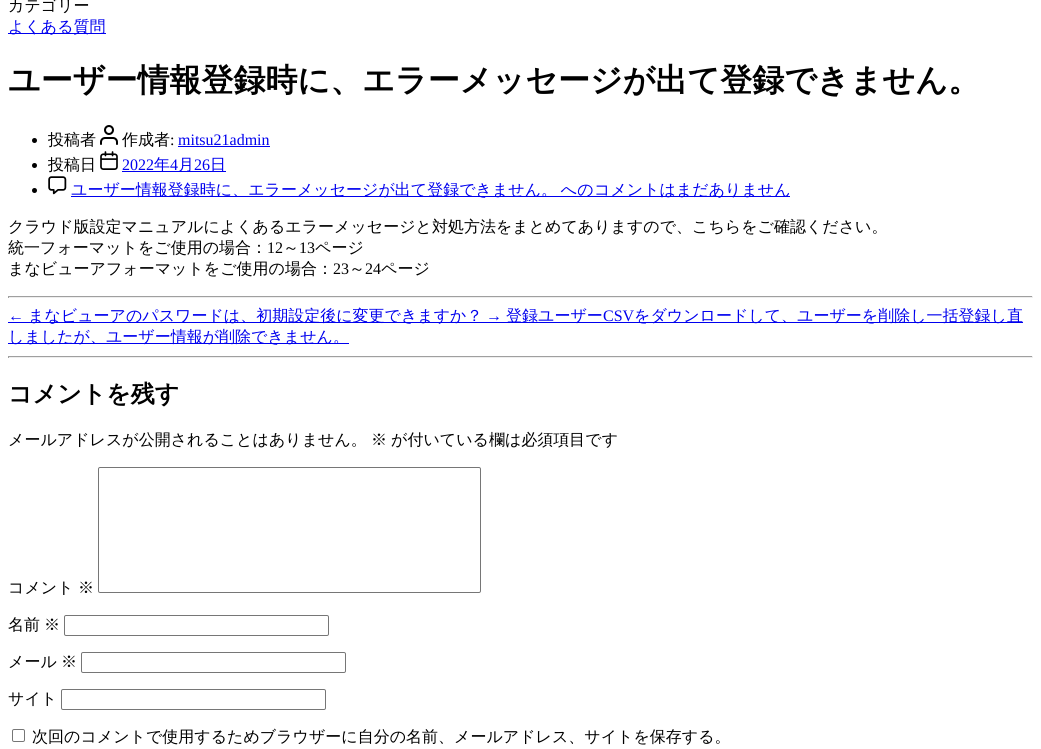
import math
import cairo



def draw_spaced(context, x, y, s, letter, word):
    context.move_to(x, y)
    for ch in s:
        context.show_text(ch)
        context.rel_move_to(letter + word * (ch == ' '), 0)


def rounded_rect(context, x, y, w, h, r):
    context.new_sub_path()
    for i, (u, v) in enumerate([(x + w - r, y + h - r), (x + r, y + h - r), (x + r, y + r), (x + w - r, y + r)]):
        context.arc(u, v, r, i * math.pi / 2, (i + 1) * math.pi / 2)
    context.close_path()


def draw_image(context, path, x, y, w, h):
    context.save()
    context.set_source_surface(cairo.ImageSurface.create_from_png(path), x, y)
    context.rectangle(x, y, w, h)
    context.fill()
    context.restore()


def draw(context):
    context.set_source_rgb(1, 1, 1)
    context.paint()
    context.set_source_rgb(0, 0, 238 / 255)
    context.rectangle(8, 33, 98, 1)
    context.fill()
    context.set_source_rgb(0, 0, 0)
    context.arc(34.5, 140.5, 2.5, 0, 2 * math.pi)
    context.fill()
    draw_image(context, "images/1.png", 100, 125, 18, 20)
    context.set_source_rgb(0, 0, 238 / 255)
    context.rectangle(178, 146, 92, 1)
    context.fill()
    context.set_source_rgb(0, 0, 0)
    context.arc(34.5, 165.5, 2.5, 0, 2 * math.pi)
    context.fill()
    draw_image(context, "images/2.png", 100, 151, 18, 19)
    context.set_source_rgb(0, 0, 238 / 255)
    context.rectangle(122, 171, 104, 1)
    context.fill()
    context.set_source_rgb(0, 0, 0)
    context.arc(34.5, 190.5, 2.5, 0, 2 * math.pi)
    context.fill()
    draw_image(context, "images/3.png", 48, 176, 19, 19)
    context.set_source_rgb(0, 0, 238 / 255)
    context.rectangle(71, 196, 719, 1)
    context.fill()
    context.set_source_rgb(159 / 255, 159 / 255, 159 / 255)
    context.rectangle(8, 296, 1025, 1)
    context.fill()
    context.set_source_rgb(238 / 255, 238 / 255, 238 / 255)
    context.rectangle(1032, 296, 1, 2)
    context.fill()
    context.rectangle(8, 297, 1025, 1)
    context.fill()
    context.set_source_rgb(159 / 255, 159 / 255, 159 / 255)
    context.rectangle(8, 296, 1, 2)
    context.fill()
    context.set_source_rgb(0, 0, 238 / 255)
    context.rectangle(8, 322, 1015, 1)
    context.fill()
    context.rectangle(8, 343, 341, 1)
    context.fill()
    context.set_source_rgb(159 / 255, 159 / 255, 159 / 255)
    context.rectangle(8, 356, 1025, 1)
    context.fill()
    context.set_source_rgb(238 / 255, 238 / 255, 238 / 255)
    context.rectangle(1032, 356, 1, 2)
    context.fill()
    context.rectangle(8, 357, 1025, 1)
    context.fill()
    context.set_source_rgb(159 / 255, 159 / 255, 159 / 255)
    context.rectangle(8, 356, 1, 2)
    context.fill()
    rounded_rect(context, 98.5, 467.5, 382, 125, 1.5)
    context.set_source_rgb(118 / 255, 118 / 255, 118 / 255)
    context.set_line_width(1)
    context.stroke()
    rounded_rect(context, 64.5, 615.5, 264, 20, 1.5)
    context.stroke()
    rounded_rect(context, 81.5, 652.5, 264, 20, 1.5)
    context.stroke()
    rounded_rect(context, 61.5, 689.5, 264, 20, 1.5)
    context.stroke()
    rounded_rect(context, 12.5, 729.5, 12, 12, 1.5)
    context.stroke()
    context.select_font_face("WenQuanYi Zen Hei Medium")
    context.set_font_size(16)
    context.set_source_rgb(0, 0, 0)
    context.move_to(8, 11)
    context.show_text("カテゴリー")
    context.set_source_rgb(0, 0, 238 / 255)
    context.move_to(8, 32)
    context.show_text("よくある質問")
    context.select_font_face("WenQuanYi Zen Hei", cairo.FontSlant.NORMAL, cairo.FontWeight.BOLD)
    context.set_font_size(32)
    context.set_source_rgb(0, 0, 0)
    context.move_to(8, 91)
    context.show_text("ユーザー情報登録時に、エラーメッセージが出て登録できません。")
    context.select_font_face("WenQuanYi Zen Hei Medium")
    context.set_font_size(16)
    context.move_to(48, 145)
    context.show_text("投稿者")
    context.move_to(122, 145)
    context.show_text("作成者")
    context.select_font_face("Liberation Serif")
    context.move_to(170, 145)
    context.show_text(":")
    context.set_source_rgb(0, 0, 238 / 255)
    context.move_to(178, 145)
    context.show_text("mitsu21admin")
    context.select_font_face("WenQuanYi Zen Hei Medium")
    context.set_source_rgb(0, 0, 0)
    context.move_to(48, 170)
    context.show_text("投稿日")
    context.select_font_face("Liberation Serif")
    context.set_source_rgb(0, 0, 238 / 255)
    context.move_to(122, 170)
    context.show_text("2022")
    context.select_font_face("WenQuanYi Zen Hei Medium")
    context.move_to(154, 170)
    context.show_text("年")
    context.select_font_face("Liberation Serif")
    context.move_to(170, 170)
    context.show_text("4")
    context.select_font_face("WenQuanYi Zen Hei Medium")
    context.move_to(178, 170)
    context.show_text("月")
    context.select_font_face("Liberation Serif")
    context.move_to(194, 170)
    context.show_text("26")
    context.select_font_face("WenQuanYi Zen Hei Medium")
    context.move_to(210, 170)
    context.show_text("日")
    draw_spaced(context, 71, 195, "ユーザー情報登録時に、エラーメッセージが出て登録できません。 への", 0, -1)
    context.move_to(594, 195)
    context.show_text("コメントはまだありません")
    context.set_source_rgb(0, 0, 0)
    context.move_to(8, 232)
    context.show_text("クラウド版設定マニュアルによくあるエラーメッセージと対処方法をまとめてありますので、こちらをご確認ください。")
    context.move_to(8, 253)
    context.show_text("統一フォーマットをご使用の場合：")
    context.select_font_face("Liberation Serif")
    context.move_to(267, 253)
    context.show_text("12")
    context.select_font_face("WenQuanYi Zen Hei Medium")
    context.move_to(283, 253)
    context.show_text("～")
    context.select_font_face("Liberation Serif")
    context.move_to(299, 253)
    context.show_text("13")
    context.select_font_face("WenQuanYi Zen Hei Medium")
    context.move_to(315, 253)
    context.show_text("ページ")
    context.move_to(8, 274)
    context.show_text("まなビューアフォーマットをご使用の場合：")
    context.select_font_face("Liberation Serif")
    context.move_to(333, 274)
    context.show_text("23")
    context.select_font_face("WenQuanYi Zen Hei Medium")
    context.move_to(349, 274)
    context.show_text("～")
    context.select_font_face("Liberation Serif")
    context.move_to(365, 274)
    context.show_text("24")
    context.select_font_face("WenQuanYi Zen Hei Medium")
    context.move_to(381, 274)
    context.show_text("ページ")
    context.select_font_face("Liberation Serif")
    context.set_source_rgb(0, 0, 238 / 255)
    context.move_to(8, 321)
    context.show_text("←")
    context.select_font_face("WenQuanYi Zen Hei Medium")
    context.move_to(28, 321)
    context.show_text("まなビューアのパスワードは、初期設定後に変更できますか？")
    context.select_font_face("Liberation Serif")
    context.move_to(486, 321)
    context.show_text("→")
    context.select_font_face("WenQuanYi Zen Hei Medium")
    context.move_to(506, 321)
    context.show_text("登録ユーザー")
    context.select_font_face("Liberation Serif")
    context.move_to(603, 321)
    context.show_text("CSV")
    context.select_font_face("WenQuanYi Zen Hei Medium")
    context.move_to(634, 321)
    context.show_text("をダウンロードして、ユーザーを削除し一括登録し直")
    context.move_to(8, 342)
    context.show_text("しましたが、ユーザー情報が削除できません。")
    context.select_font_face("WenQuanYi Zen Hei", cairo.FontSlant.NORMAL, cairo.FontWeight.BOLD)
    context.set_font_size(24)
    context.set_source_rgb(0, 0, 0)
    context.move_to(8, 402)
    context.show_text("コメントを残す")
    context.select_font_face("WenQuanYi Zen Hei Medium")
    context.set_font_size(16)
    context.move_to(8, 445)
    context.show_text("メールアドレスが公開されることはありません。")
    context.move_to(371, 445)
    context.show_text("※")
    context.move_to(391, 445)
    context.show_text("が付いている欄は必須項目です")
    context.move_to(8, 593)
    context.show_text("コメント")
    context.move_to(78, 593)
    context.show_text("※")
    context.move_to(8, 630)
    context.show_text("名前")
    context.move_to(44, 630)
    context.show_text("※")
    context.move_to(8, 667)
    context.show_text("メール")
    context.move_to(61, 667)
    context.show_text("※")
    context.move_to(8, 704)
    context.show_text("サイト")
    context.move_to(32, 742)
    context.show_text("次回のコメントで使用するためブラウザーに自分の名前、メールアドレス、サイトを保存する。")


surface = cairo.ImageSurface(cairo.Format.RGB24, 1041, 749)
context = cairo.Context(surface)
options = cairo.FontOptions()
options.set_hint_metrics(cairo.HintMetrics.OFF)
options.set_hint_style(cairo.HintStyle.NONE)
context.set_font_options(options)
context.set_miter_limit(4)
draw(context)
surface.write_to_png("out.png")
